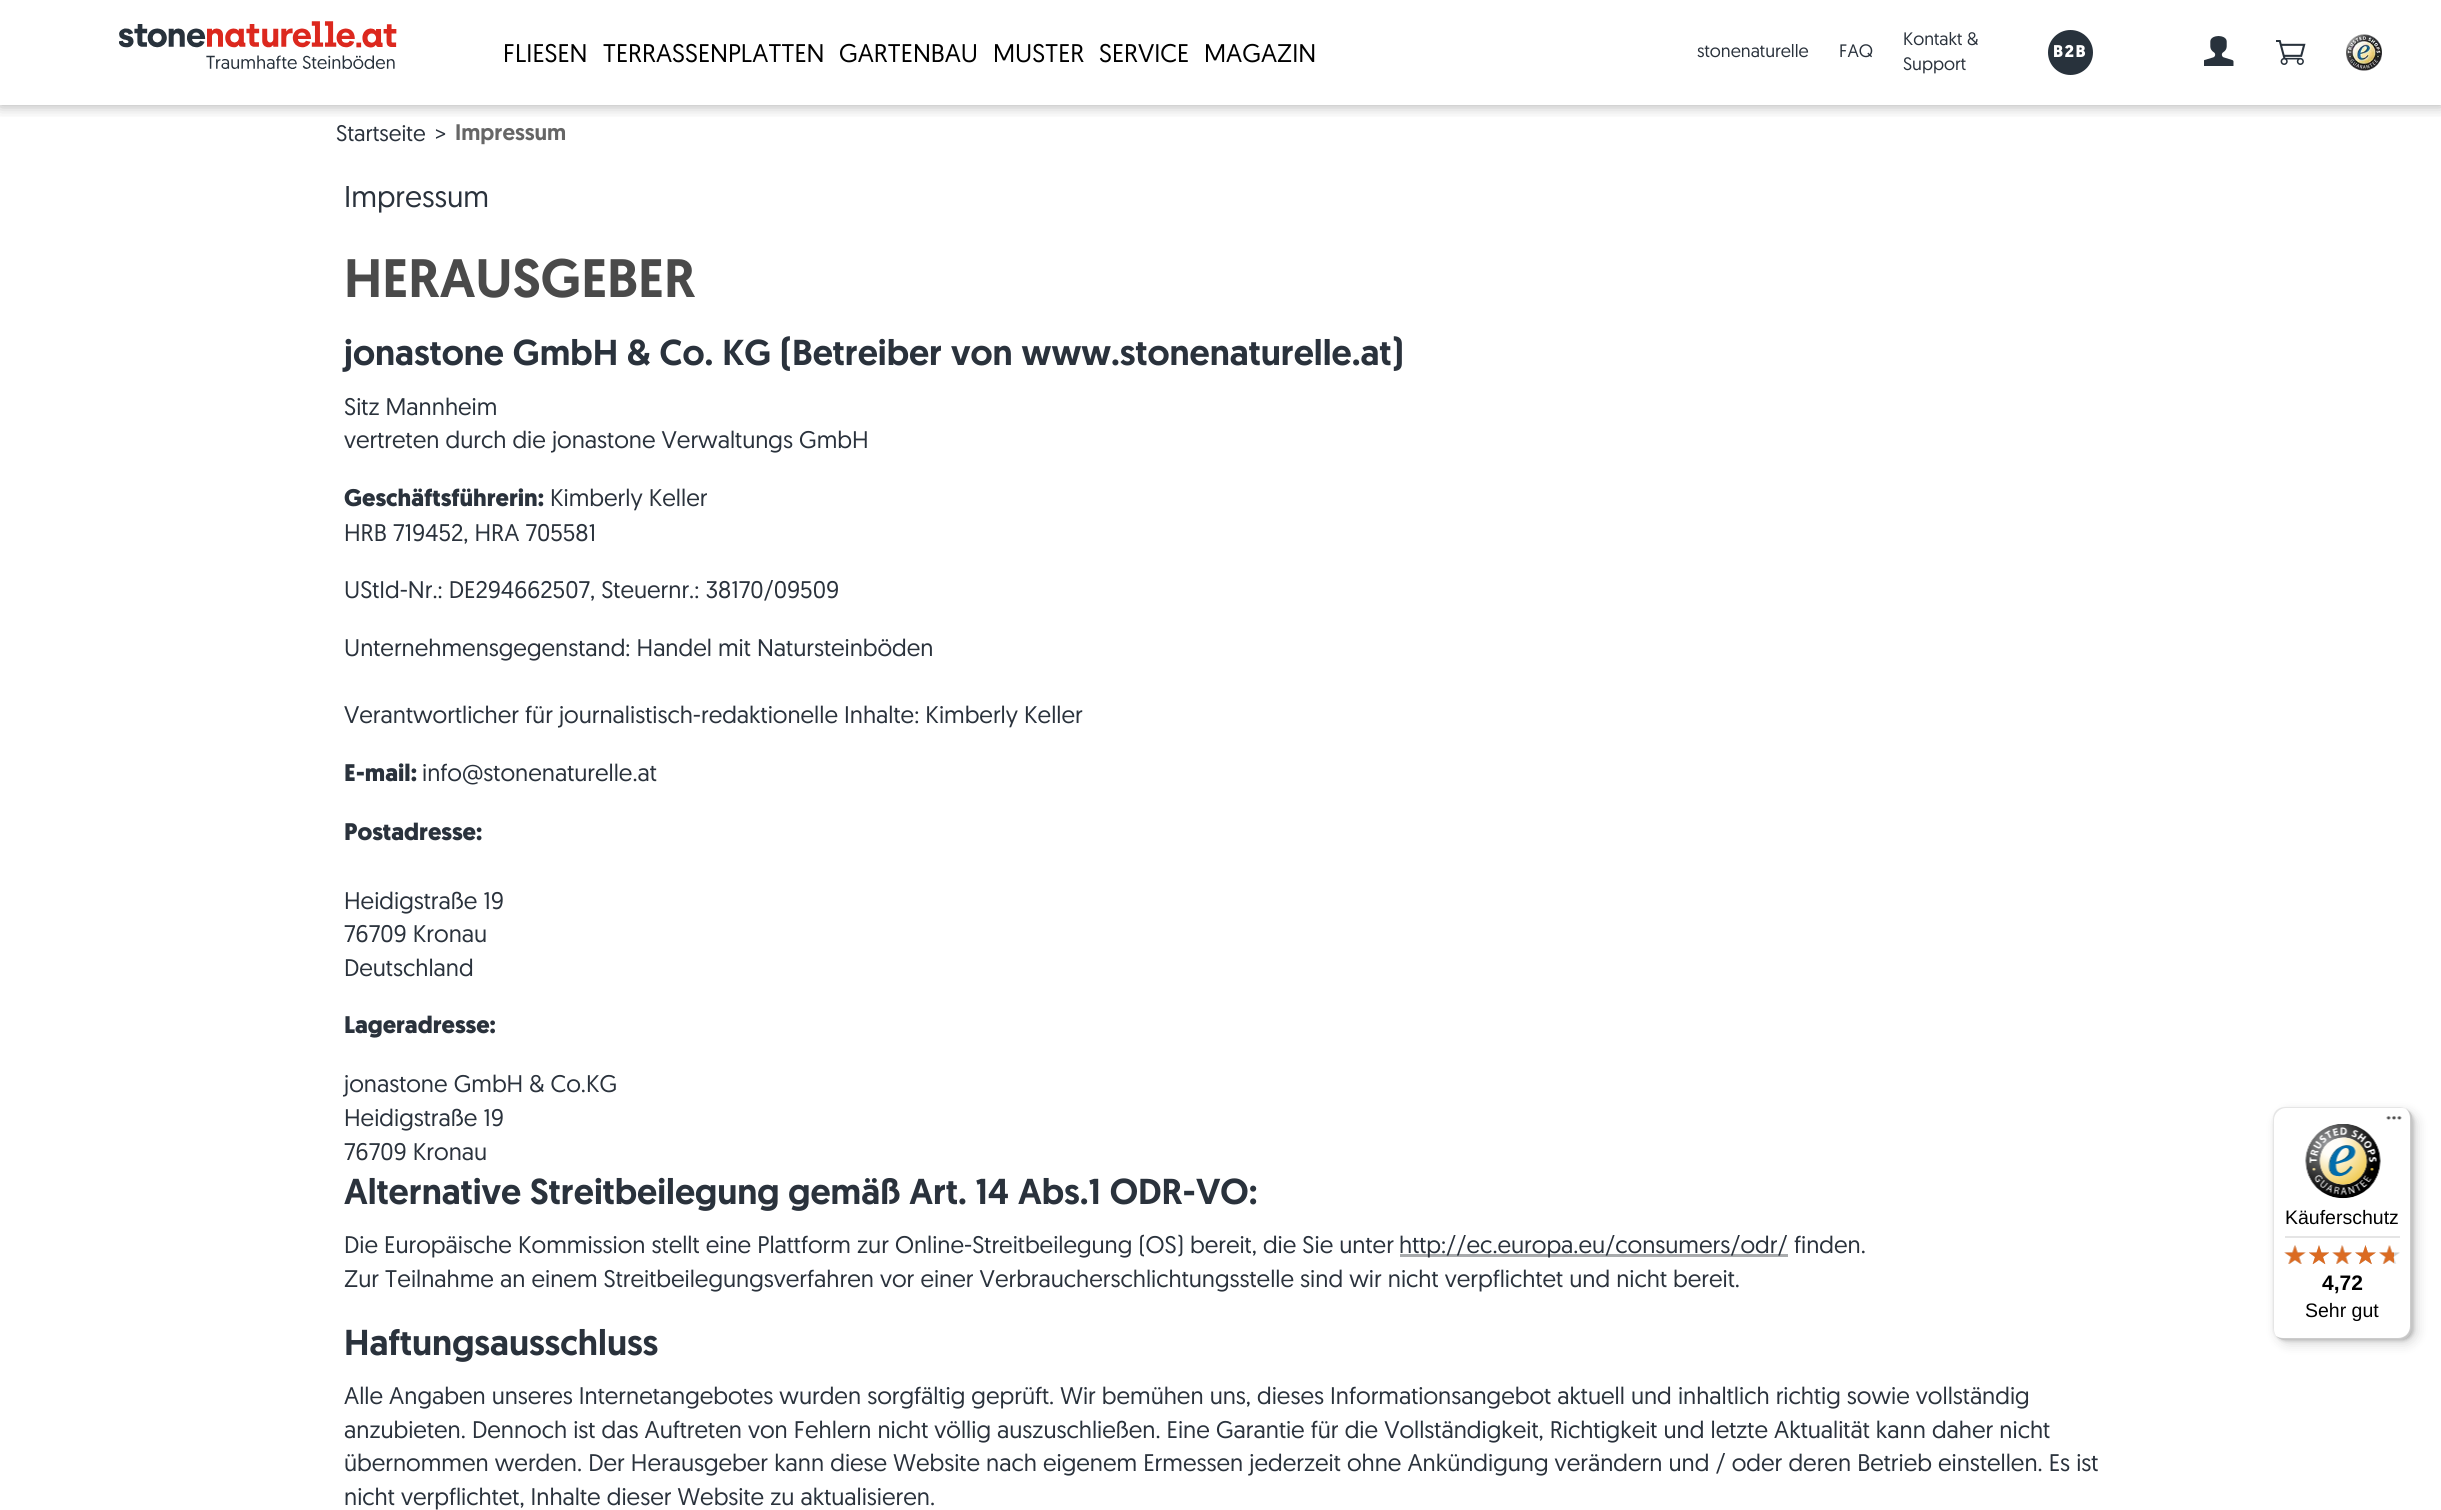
import math
import cairo



def draw_spaced(context, x, y, s, letter, word):
    context.move_to(x, y)
    for ch in s:
        context.show_text(ch)
        context.rel_move_to(letter + word * (ch == ' '), 0)


def rounded_rect(context, x, y, w, h, r):
    context.new_sub_path()
    for i, (u, v) in enumerate([(x + w - r, y + h - r), (x + r, y + h - r), (x + r, y + r), (x + w - r, y + r)]):
        context.arc(u, v, r, i * math.pi / 2, (i + 1) * math.pi / 2)
    context.close_path()


def draw_shadow(context, x, y, w, h, r, blur, alpha):
    context.push_group_with_content(cairo.Content.ALPHA)
    context.set_operator(cairo.Operator.SOURCE)
    for i in range(15, -16, -2):
        e = blur * i / 6
        if min(w, h) + 2 * e > 0:
            context.set_source_rgba(0, 0, 0, alpha * math.erfc((i - 1) / 8.5) / 2)
            rounded_rect(context, x - e, y - e, w + 2 * e, h + 2 * e, max(0, min(r + e + blur * .6, min(w, h) / 2 + e)))
            context.fill()
    context.mask(context.pop_group())


def draw_image(context, path, x, y, w, h):
    context.save()
    context.set_source_surface(cairo.ImageSurface.create_from_png(path), x, y)
    context.rectangle(x, y, w, h)
    context.fill()
    context.restore()


def draw(context):
    context.set_source_rgb(1, 1, 1)
    context.paint()
    context.save()
    context.rectangle(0, 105, 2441, 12)
    context.clip()
    context.set_source_rgb(0, 0, 0)
    draw_shadow(context, 0, 0, 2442, 105, 0, 7.5, 0.35)
    context.restore()
    draw_image(context, "images/1.png", 119, 21, 278, 48)
    context.set_source_rgb(40 / 255, 50 / 255, 60 / 255)
    context.arc(2070.5, 52.5, 22.5, 0, 2 * math.pi)
    context.fill()
    draw_image(context, "images/2.png", 2204, 36, 30, 30)
    draw_image(context, "images/3.png", 2276, 40, 30, 25)
    draw_image(context, "images/4.png", 2346, 34, 36, 37)
    context.set_source_rgb(169 / 255, 171 / 255, 173 / 255)
    context.rectangle(1400, 1254, 388, 3)
    context.fill()
    context.set_source_rgb(0, 0, 0)
    draw_shadow(context, 2277, 1112, 140, 232, 12, 6, 0.15)
    draw_shadow(context, 2274, 1109, 140, 232, 12, 1.5, 0.15)
    context.set_source_rgb(1, 1, 1)
    rounded_rect(context, 2273, 1107, 139, 233, 12)
    context.fill()
    context.set_source_rgb(229 / 255, 229 / 255, 229 / 255)
    context.new_path()
    context.move_to(2286, 1108)
    context.line_to(2402, 1108)
    context.curve_to(2404, 1108, 2406, 1109, 2407, 1110)
    context.curve_to(2405, 1108, 2403, 1107, 2400, 1107)
    context.line_to(2285, 1107)
    context.curve_to(2278, 1107, 2273, 1112, 2273, 1119)
    context.line_to(2273, 1328)
    context.curve_to(2273, 1331, 2274, 1334, 2276, 1336)
    context.curve_to(2275, 1334, 2274, 1332, 2274, 1329)
    context.line_to(2274, 1120)
    context.curve_to(2274, 1114, 2279, 1108, 2286, 1108)
    context.close_path()
    context.fill()
    context.set_source_rgba(0, 0, 0, 0.2)
    context.new_path()
    context.move_to(2276, 1336)
    context.curve_to(2278, 1338, 2281, 1340, 2285, 1340)
    context.line_to(2400, 1340)
    context.curve_to(2407, 1340, 2412, 1335, 2412, 1328)
    context.line_to(2412, 1119)
    context.curve_to(2412, 1114, 2409, 1110, 2405, 1108)
    context.curve_to(2408, 1110, 2410, 1114, 2410, 1118)
    context.line_to(2410, 1326)
    context.curve_to(2410, 1333, 2405, 1338, 2398, 1338)
    context.line_to(2283, 1338)
    context.curve_to(2280, 1338, 2278, 1337, 2276, 1336)
    context.close_path()
    context.fill()
    context.set_source_rgba(50 / 255, 50 / 255, 50 / 255, 0.2)
    context.new_path()
    context.move_to(2276, 1336)
    context.curve_to(2278, 1338, 2281, 1340, 2285, 1340)
    context.line_to(2400, 1340)
    context.curve_to(2407, 1340, 2412, 1335, 2412, 1328)
    context.line_to(2412, 1119)
    context.curve_to(2412, 1116, 2411, 1113, 2409, 1111)
    context.curve_to(2410, 1113, 2411, 1115, 2411, 1118)
    context.line_to(2411, 1327)
    context.curve_to(2411, 1333, 2406, 1339, 2399, 1339)
    context.line_to(2284, 1339)
    context.curve_to(2281, 1339, 2278, 1338, 2276, 1336)
    context.close_path()
    context.fill()
    context.set_source_rgba(1, 1, 1, 0.3)
    context.new_path()
    context.move_to(2276, 1336)
    context.curve_to(2278, 1338, 2281, 1340, 2285, 1340)
    context.line_to(2400, 1340)
    context.curve_to(2407, 1340, 2412, 1335, 2412, 1328)
    context.line_to(2412, 1119)
    context.curve_to(2412, 1115, 2410, 1112, 2408, 1110)
    context.curve_to(2410, 1112, 2411, 1115, 2411, 1118)
    context.line_to(2411, 1327)
    context.curve_to(2411, 1333, 2406, 1339, 2399, 1339)
    context.line_to(2284, 1339)
    context.curve_to(2281, 1339, 2278, 1338, 2276, 1336)
    context.close_path()
    context.fill()
    draw_image(context, "images/5.png", 2386, 1116, 16, 4)
    draw_image(context, "images/6.png", 2305, 1124, 76, 75)
    context.set_source_rgb(229 / 255, 229 / 255, 229 / 255)
    context.rectangle(2285, 1236, 115, 2)
    context.fill()
    draw_image(context, "images/7.png", 2284, 1245, 22, 19)
    draw_image(context, "images/8.png", 2309, 1245, 20, 19)
    draw_image(context, "images/9.png", 2332, 1245, 20, 19)
    draw_image(context, "images/10.png", 2355, 1245, 21, 19)
    draw_image(context, "images/11.png", 2379, 1245, 21, 19)
    draw_image(context, "images/12.png", 2284, 1245, 22, 19)
    draw_image(context, "images/13.png", 2309, 1245, 20, 20)
    draw_image(context, "images/14.png", 2332, 1245, 20, 19)
    draw_image(context, "images/15.png", 2355, 1245, 21, 20)
    draw_image(context, "images/16.png", 2379, 1245, 15, 19)
    context.select_font_face("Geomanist")
    context.set_font_size(25.5)
    context.set_source_rgb(0, 0, 0)
    context.move_to(503, 62)
    context.show_text("FLIESEN")
    context.move_to(603, 62)
    context.show_text("TERRASSENPLATTEN")
    context.move_to(839, 62)
    context.show_text("GARTENBAU")
    context.move_to(993, 62)
    context.show_text("MUSTER")
    context.move_to(1099, 62)
    context.show_text("SERVICE")
    context.move_to(1204, 62)
    context.show_text("MAGAZIN")
    context.set_font_size(18)
    context.set_source_rgb(42 / 255, 50 / 255, 60 / 255)
    context.move_to(1697, 57)
    context.show_text("stonenaturelle")
    context.move_to(1839, 57)
    context.show_text("FAQ")
    context.move_to(1903, 45)
    context.show_text("Kontakt &")
    context.move_to(1903, 70)
    context.show_text("Support")
    context.select_font_face("Geomanist", cairo.FontSlant.NORMAL, cairo.FontWeight.BOLD)
    context.set_font_size(17)
    context.set_source_rgb(1, 1, 1)
    draw_spaced(context, 2053, 57, "B2B", 1.5, 0)
    context.select_font_face("Geomanist")
    context.set_font_size(22.5)
    context.set_source_rgb(42 / 255, 50 / 255, 60 / 255)
    context.move_to(336, 141)
    context.show_text("Startseite")
    context.move_to(435, 141)
    context.show_text(">")
    context.select_font_face("Geomanist Medium")
    context.set_source_rgb(102 / 255, 102 / 255, 102 / 255)
    context.move_to(455, 140)
    context.show_text("Impressum")
    context.select_font_face("Geomanist")
    context.set_font_size(30)
    context.set_source_rgb(42 / 255, 50 / 255, 60 / 255)
    context.move_to(344, 207)
    context.show_text("Impressum")
    context.select_font_face("Geomanist Medium")
    context.set_font_size(54)
    context.set_source_rgb(74 / 255, 74 / 255, 74 / 255)
    context.move_to(344, 297)
    context.show_text("HERAUSGEBER")
    context.set_font_size(36)
    context.set_source_rgb(42 / 255, 50 / 255, 60 / 255)
    context.move_to(344, 365)
    context.show_text("jonastone GmbH & Co. KG (Betreiber von www.stonenaturelle.at)")
    context.select_font_face("Geomanist")
    context.set_font_size(24)
    context.move_to(344, 415)
    context.show_text("Sitz Mannheim")
    context.move_to(344, 448)
    context.show_text("vertreten durch die jonastone Verwaltungs GmbH")
    context.select_font_face("Geomanist", cairo.FontSlant.NORMAL, cairo.FontWeight.BOLD)
    context.move_to(344, 506)
    context.show_text("Geschäftsführerin:")
    context.select_font_face("Geomanist")
    context.move_to(550, 506)
    context.show_text("Kimberly Keller")
    context.move_to(344, 541)
    context.show_text("HRB 719452, HRA 705581")
    context.move_to(344, 598)
    context.show_text("UStId-Nr.: DE294662507, Steuernr.: 38170/09509")
    context.move_to(344, 656)
    context.show_text("Unternehmensgegenstand: Handel mit Natursteinböden")
    context.move_to(344, 723)
    context.show_text("Verantwortlicher für journalistisch-redaktionelle Inhalte: Kimberly Keller")
    context.select_font_face("Geomanist", cairo.FontSlant.NORMAL, cairo.FontWeight.BOLD)
    context.move_to(344, 781)
    context.show_text("E-mail:")
    context.select_font_face("Geomanist")
    context.move_to(422, 781)
    context.show_text("info@stonenaturelle.at")
    context.select_font_face("Geomanist", cairo.FontSlant.NORMAL, cairo.FontWeight.BOLD)
    context.move_to(344, 840)
    context.show_text("Postadresse:")
    context.select_font_face("Geomanist")
    context.move_to(344, 909)
    context.show_text("Heidigstraße 19")
    context.move_to(344, 942)
    context.show_text("76709 Kronau")
    context.move_to(344, 976)
    context.show_text("Deutschland")
    context.select_font_face("Geomanist", cairo.FontSlant.NORMAL, cairo.FontWeight.BOLD)
    context.move_to(344, 1033)
    context.show_text("Lageradresse:")
    context.select_font_face("Geomanist")
    context.move_to(344, 1092)
    context.show_text("jonastone GmbH & Co.KG")
    context.move_to(344, 1126)
    context.show_text("Heidigstraße 19")
    context.move_to(344, 1160)
    context.show_text("76709 Kronau")
    context.select_font_face("Geomanist Medium")
    context.set_font_size(36)
    context.move_to(344, 1204)
    context.show_text("Alternative Streitbeilegung gemäß Art. 14 Abs.1 ODR-VO:")
    context.select_font_face("Geomanist")
    context.set_font_size(24)
    context.move_to(344, 1253)
    context.show_text("Die Europäische Kommission stellt eine Plattform zur Online-Streitbeilegung (OS) bereit, die Sie unter")
    context.move_to(1399, 1253)
    context.show_text("http://ec.europa.eu/consumers/odr/")
    context.move_to(1794, 1253)
    context.show_text("finden.")
    context.move_to(344, 1287)
    context.show_text("Zur Teilnahme an einem Streitbeilegungsverfahren vor einer Verbraucherschlichtungsstelle sind wir nicht verpflichtet und nicht bereit.")
    context.select_font_face("Geomanist Medium")
    context.set_font_size(36)
    context.move_to(344, 1355)
    context.show_text("Haftungsausschluss")
    context.select_font_face("Geomanist")
    context.set_font_size(24)
    context.move_to(344, 1404)
    context.show_text("Alle Angaben unseres Internetangebotes wurden sorgfältig geprüft. Wir bemühen uns, dieses Informationsangebot aktuell und inhaltlich richtig sowie vollständig")
    context.move_to(344, 1438)
    context.show_text("anzubieten. Dennoch ist das Auftreten von Fehlern nicht völlig auszuschließen. Eine Garantie für die Vollständigkeit, Richtigkeit und letzte Aktualität kann daher nicht")
    context.move_to(344, 1471)
    context.show_text("übernommen werden. Der Herausgeber kann diese Website nach eigenem Ermessen jederzeit ohne Ankündigung verändern und / oder deren Betrieb einstellen. Es ist")
    context.move_to(344, 1505)
    context.show_text("nicht verpflichtet, Inhalte dieser Website zu aktualisieren.")
    context.select_font_face("Liberation Sans")
    context.set_font_size(19.5)
    context.set_source_rgb(0, 0, 0)
    context.move_to(2285, 1224)
    context.show_text("Käuferschutz")
    context.select_font_face("Liberation Sans", cairo.FontSlant.NORMAL, cairo.FontWeight.BOLD)
    context.set_font_size(21)
    context.move_to(2322, 1290)
    context.show_text("4,72")
    context.select_font_face("Liberation Sans")
    context.set_font_size(19.5)
    context.move_to(2305, 1317)
    context.show_text("Sehr gut")


surface = cairo.ImageSurface(cairo.Format.RGB24, 2441, 1510)
context = cairo.Context(surface)
options = cairo.FontOptions()
options.set_hint_metrics(cairo.HintMetrics.OFF)
options.set_hint_style(cairo.HintStyle.NONE)
context.set_font_options(options)
context.set_miter_limit(4)
draw(context)
surface.write_to_png("out.png")
